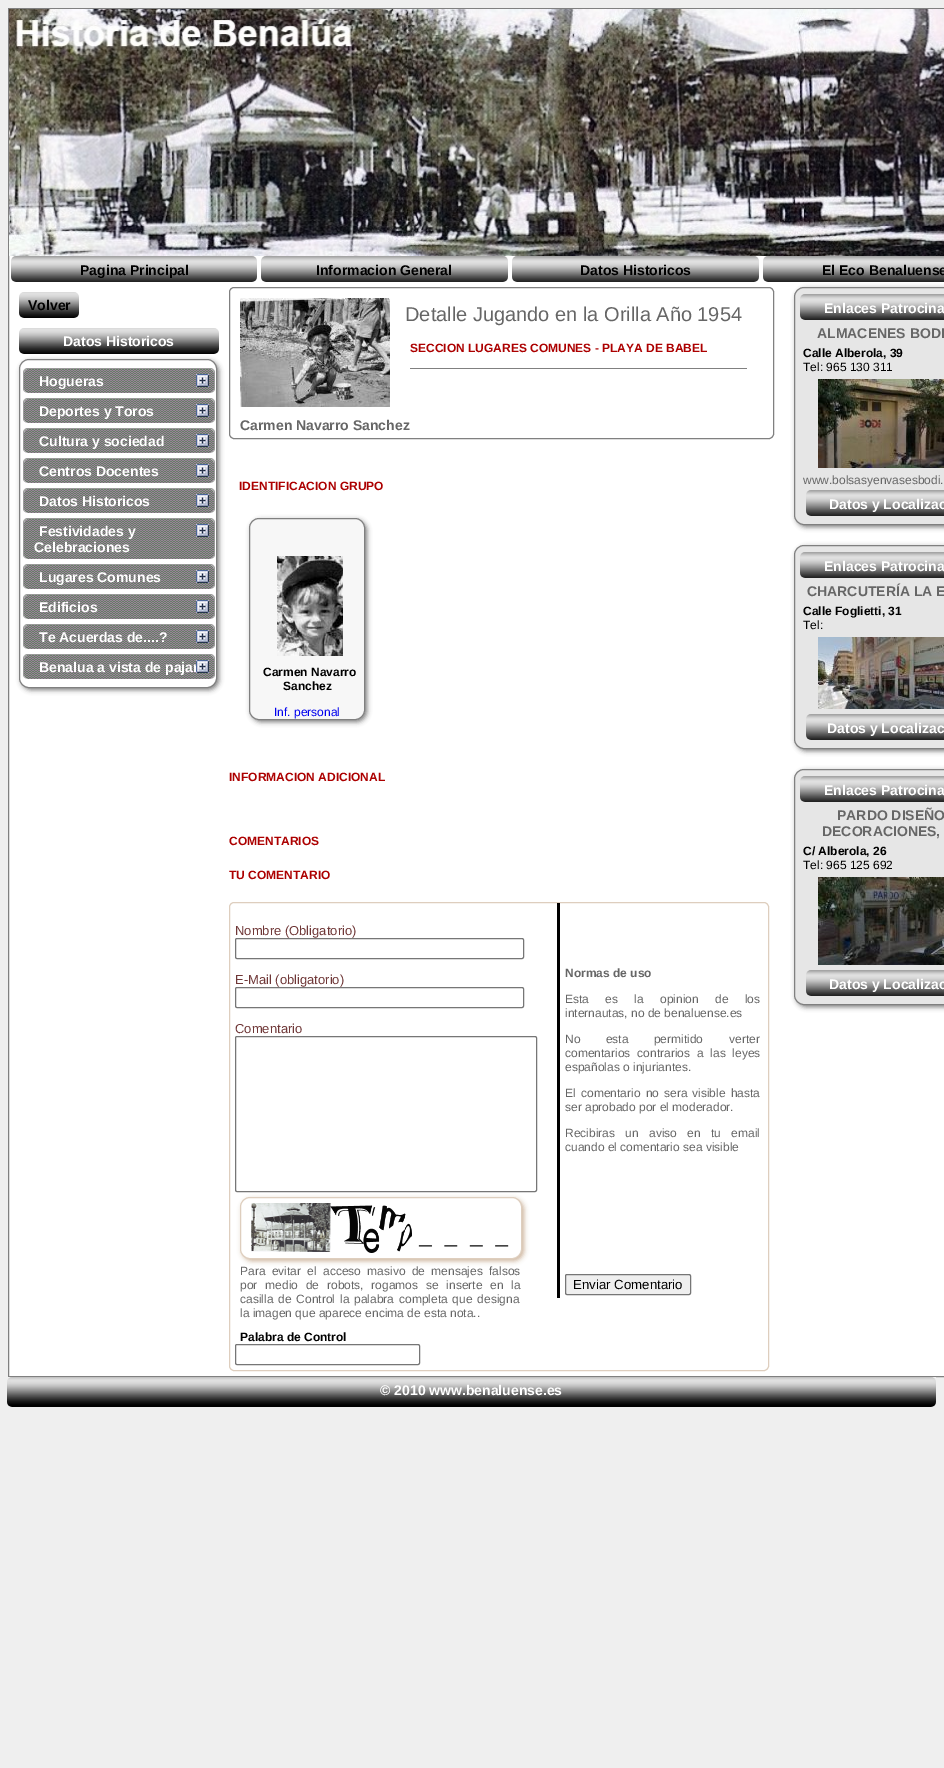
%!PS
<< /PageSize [944 1768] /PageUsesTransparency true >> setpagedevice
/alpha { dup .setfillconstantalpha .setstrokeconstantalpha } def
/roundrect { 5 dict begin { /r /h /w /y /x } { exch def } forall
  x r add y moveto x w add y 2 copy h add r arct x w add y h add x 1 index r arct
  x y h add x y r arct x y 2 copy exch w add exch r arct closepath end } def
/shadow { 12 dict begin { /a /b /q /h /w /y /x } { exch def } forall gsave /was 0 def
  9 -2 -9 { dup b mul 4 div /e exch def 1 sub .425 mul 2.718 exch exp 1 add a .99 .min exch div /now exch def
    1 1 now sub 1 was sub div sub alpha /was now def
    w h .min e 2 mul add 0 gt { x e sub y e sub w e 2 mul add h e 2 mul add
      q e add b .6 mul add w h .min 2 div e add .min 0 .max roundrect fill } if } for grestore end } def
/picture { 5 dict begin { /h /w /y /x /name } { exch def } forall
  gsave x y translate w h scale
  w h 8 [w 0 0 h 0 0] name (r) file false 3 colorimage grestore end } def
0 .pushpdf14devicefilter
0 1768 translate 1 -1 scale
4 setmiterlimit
0.937 setgray
0 0 944 1768 rectfill
1 setgray
9 256 935 1120 rectfill
0.502 setgray
8.5 8.5 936 1368 rectstroke
(img1.rgb) 9 9 935 247 picture
(img2.rgb) 11 256 246 26 picture
/LiberationSans-Bold [14 0 0 -14 0 0] selectfont
0 setgray
80 275 moveto (Pagina Principal) show
(img3.rgb) 261 256 247 26 picture
316 275 moveto (Informacion General) show
(img4.rgb) 512 256 247 26 picture
580 275 moveto (Datos Historicos) show
0.502 setgray
796 289 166 238 10 2.5 1 shadow
(img5.rgb) 763 256 181 26 picture
0 setgray
822 275 moveto (El Eco Benaluense) show
(img6.rgb) 19 292 60 26 picture
28 310 moveto (Volver) show
(img7.rgb) 19 328 200 26 picture
1 setgray
63 346 moveto (Datos Historicos) show
gsave
newpath 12 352 moveto 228 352 lineto 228 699 lineto 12 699 lineto closepath 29 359 moveto 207 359 lineto 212.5 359 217 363.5 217 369 curveto 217 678 lineto 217 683.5 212.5 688 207 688 curveto 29 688 lineto 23.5 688 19 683.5 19 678 curveto 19 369 lineto 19 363.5 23.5 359 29 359 curveto closepath eoclip newpath
0.502 setgray
21 361 198 329 10 2.5 1 shadow
grestore
0.502 setgray
19.5 359.5 197 328 9.5 roundrect stroke
0.604 setgray
newpath 28 368 moveto 210 368 lineto 213 368 215 370 215 373 curveto 215 388 lineto 215 391 213 393 210 393 curveto 28 393 lineto 25 393 23 391 23 388 curveto 23 373 lineto 23 370 25 368 28 368 curveto closepath 28 369 moveto 210 369 lineto 212 369 214 371 214 373 curveto 214 388 lineto 214 391 212 393 210 393 curveto 28 393 lineto 26 393 24 391 24 388 curveto 24 373 lineto 24 371 26 369 28 369 curveto closepath eofill
(img8.rgb) 24 369 190 24 picture
1 setgray
39 386 moveto (Hogueras) show
(img9.rgb) 196 374 13 13 picture
0.604 setgray
newpath 28 398 moveto 210 398 lineto 213 398 215 400 215 403 curveto 215 418 lineto 215 421 213 423 210 423 curveto 28 423 lineto 25 423 23 421 23 418 curveto 23 403 lineto 23 400 25 398 28 398 curveto closepath 28 399 moveto 210 399 lineto 212 399 214 401 214 403 curveto 214 418 lineto 214 421 212 423 210 423 curveto 28 423 lineto 26 423 24 421 24 418 curveto 24 403 lineto 24 401 26 399 28 399 curveto closepath eofill
(img8.rgb) 24 399 190 24 picture
1 setgray
39 416 moveto (Deportes y Toros) show
(img9.rgb) 196 404 13 13 picture
0.604 setgray
newpath 28 428 moveto 210 428 lineto 213 428 215 430 215 433 curveto 215 448 lineto 215 451 213 453 210 453 curveto 28 453 lineto 25 453 23 451 23 448 curveto 23 433 lineto 23 430 25 428 28 428 curveto closepath 28 429 moveto 210 429 lineto 212 429 214 431 214 433 curveto 214 448 lineto 214 451 212 453 210 453 curveto 28 453 lineto 26 453 24 451 24 448 curveto 24 433 lineto 24 431 26 429 28 429 curveto closepath eofill
(img8.rgb) 24 429 190 24 picture
1 setgray
39 446 moveto (Cultura y sociedad) show
(img9.rgb) 196 434 13 13 picture
0.604 setgray
newpath 28 458 moveto 210 458 lineto 213 458 215 460 215 463 curveto 215 478 lineto 215 481 213 483 210 483 curveto 28 483 lineto 25 483 23 481 23 478 curveto 23 463 lineto 23 460 25 458 28 458 curveto closepath 28 459 moveto 210 459 lineto 212 459 214 461 214 463 curveto 214 478 lineto 214 481 212 483 210 483 curveto 28 483 lineto 26 483 24 481 24 478 curveto 24 463 lineto 24 461 26 459 28 459 curveto closepath eofill
(img8.rgb) 24 459 190 24 picture
1 setgray
39 476 moveto (Centros Docentes) show
(img9.rgb) 196 464 13 13 picture
0.604 setgray
newpath 28 488 moveto 210 488 lineto 213 488 215 490 215 493 curveto 215 508 lineto 215 511 213 513 210 513 curveto 28 513 lineto 25 513 23 511 23 508 curveto 23 493 lineto 23 490 25 488 28 488 curveto closepath 28 489 moveto 210 489 lineto 212 489 214 491 214 493 curveto 214 508 lineto 214 511 212 513 210 513 curveto 28 513 lineto 26 513 24 511 24 508 curveto 24 493 lineto 24 491 26 489 28 489 curveto closepath eofill
(img8.rgb) 24 489 190 24 picture
1 setgray
39 506 moveto (Datos Historicos) show
(img9.rgb) 196 494 13 13 picture
0.604 setgray
newpath 28 518 moveto 210 518 lineto 213 518 215 520 215 523 curveto 215 554 lineto 215 557 213 559 210 559 curveto 28 559 lineto 25 559 23 557 23 554 curveto 23 523 lineto 23 520 25 518 28 518 curveto closepath 28 519 moveto 210 519 lineto 212 519 214 521 214 523 curveto 214 554 lineto 214 557 212 559 210 559 curveto 28 559 lineto 26 559 24 557 24 554 curveto 24 523 lineto 24 521 26 519 28 519 curveto closepath eofill
(img10.rgb) 24 519 190 40 picture
1 setgray
39 536 moveto (Festividades y) show
(img9.rgb) 196 524 13 13 picture
34 552 moveto (Celebraciones) show
0.604 setgray
newpath 28 564 moveto 210 564 lineto 213 564 215 566 215 569 curveto 215 584 lineto 215 587 213 589 210 589 curveto 28 589 lineto 25 589 23 587 23 584 curveto 23 569 lineto 23 566 25 564 28 564 curveto closepath 28 565 moveto 210 565 lineto 212 565 214 567 214 569 curveto 214 584 lineto 214 587 212 589 210 589 curveto 28 589 lineto 26 589 24 587 24 584 curveto 24 569 lineto 24 567 26 565 28 565 curveto closepath eofill
(img8.rgb) 24 565 190 24 picture
1 setgray
39 582 moveto (Lugares Comunes) show
(img9.rgb) 196 570 13 13 picture
0.604 setgray
newpath 28 594 moveto 210 594 lineto 213 594 215 596 215 599 curveto 215 614 lineto 215 617 213 619 210 619 curveto 28 619 lineto 25 619 23 617 23 614 curveto 23 599 lineto 23 596 25 594 28 594 curveto closepath 28 595 moveto 210 595 lineto 212 595 214 597 214 599 curveto 214 614 lineto 214 617 212 619 210 619 curveto 28 619 lineto 26 619 24 617 24 614 curveto 24 599 lineto 24 597 26 595 28 595 curveto closepath eofill
(img8.rgb) 24 595 190 24 picture
1 setgray
39 612 moveto (Edificios) show
(img9.rgb) 196 600 13 13 picture
0.604 setgray
newpath 28 624 moveto 210 624 lineto 213 624 215 626 215 629 curveto 215 644 lineto 215 647 213 649 210 649 curveto 28 649 lineto 25 649 23 647 23 644 curveto 23 629 lineto 23 626 25 624 28 624 curveto closepath 28 625 moveto 210 625 lineto 212 625 214 627 214 629 curveto 214 644 lineto 214 647 212 649 210 649 curveto 28 649 lineto 26 649 24 647 24 644 curveto 24 629 lineto 24 627 26 625 28 625 curveto closepath eofill
(img8.rgb) 24 625 190 24 picture
1 setgray
39 642 moveto (Te Acuerdas de....?) show
(img9.rgb) 196 630 13 13 picture
0.604 setgray
newpath 28 654 moveto 210 654 lineto 213 654 215 656 215 659 curveto 215 674 lineto 215 677 213 679 210 679 curveto 28 679 lineto 25 679 23 677 23 674 curveto 23 659 lineto 23 656 25 654 28 654 curveto closepath 28 655 moveto 210 655 lineto 212 655 214 657 214 659 curveto 214 674 lineto 214 677 212 679 210 679 curveto 28 679 lineto 26 679 24 677 24 674 curveto 24 659 lineto 24 657 26 655 28 655 curveto closepath eofill
(img8.rgb) 24 655 190 24 picture
1 setgray
39 672 moveto (Benalua a vista de pajar) show
(img9.rgb) 196 660 13 13 picture
0.502 setgray
229.5 287.5 544 151 4.5 roundrect stroke
(img11.rgb) 240 298 150 109 picture
/LiberationSans-Regular [20 0 0 -20 0 0] selectfont
0.4 setgray
405 321 moveto (Detalle Jugando en la Orilla Año 1954) show
/LiberationSans-Bold [12 0 0 -12 0 0] selectfont
0.675 0 0 setrgbcolor
410 352 moveto (SECCION LUGARES COMUNES - PLAYA DE BABEL) show
0.502 setgray
410 368 337 1 rectfill
/LiberationSans-Bold [14 0 0 -14 0 0] selectfont
0.4 setgray
240 430 moveto (Carmen Navarro Sanchez) show
/LiberationSans-Bold [12 0 0 -12 0 0] selectfont
0.675 0 0 setrgbcolor
239 490 moveto (IDENTIFICACION GRUPO) show
0.502 setgray
251 520 116 202 10 2.5 1 shadow
0.969 setgray
249.5 518.5 115 201 9.5 roundrect gsave fill grestore
0.502 setgray
stroke
(img12.rgb) 277 556 66 100 picture
0 setgray
263 676 moveto (Carmen Navarro) show
283 690 moveto (Sanchez) show
/LiberationSans-Regular [12 0 0 -12 0 0] selectfont
0 0 0.933 setrgbcolor
274 716 moveto (Inf. personal) show
/LiberationSans-Bold [12 0 0 -12 0 0] selectfont
0.675 0 0 setrgbcolor
229 781 moveto (INFORMACION ADICIONAL) show
229 845 moveto (COMENTARIOS) show
229 879 moveto (TU COMENTARIO) show
0.871 0.808 0.745 setrgbcolor
229.5 902.5 539 468 4.5 roundrect stroke
/LiberationSans-Regular [13 0 0 -13 0 0] selectfont
0.435 0.216 0.216 setrgbcolor
235 935 moveto (Nombre \(Obligatorio\)) show
0.463 setgray
235.5 938.5 288 20 1.5 roundrect stroke
0.435 0.216 0.216 setrgbcolor
235 984 moveto (E-Mail \(obligatorio\)) show
0.463 setgray
235.5 987.5 288 20 1.5 roundrect stroke
0.435 0.216 0.216 setrgbcolor
235 1033 moveto (Comentario) show
gsave
newpath 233 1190 moveto 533 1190 lineto 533 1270 lineto 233 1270 lineto closepath 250 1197 moveto 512 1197 lineto 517.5 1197 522 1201.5 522 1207 curveto 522 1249 lineto 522 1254.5 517.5 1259 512 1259 curveto 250 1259 lineto 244.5 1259 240 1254.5 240 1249 curveto 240 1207 lineto 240 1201.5 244.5 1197 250 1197 curveto closepath eoclip newpath
0.804 0.706 0.612 setrgbcolor
242 1199 282 62 10 2.5 1 shadow
grestore
0.463 setgray
235.5 1036.5 301 155 1.5 roundrect stroke
0.871 0.808 0.745 setrgbcolor
240.5 1197.5 281 61 9.5 roundrect stroke
(img13.rgb) 251 1203 258 50 picture
/LiberationSans-Regular [12 0 0 -12 0 0] selectfont
0.4 setgray
240 1275 moveto 3 0 32 (Para evitar el acceso masivo de mensajes falsos) widthshow
240 1289 moveto 4.5 0 32 (por medio de robots, rogamos se inserte en la) widthshow
240 1303 moveto 1.5 0 32 (casilla de Control la palabra completa que designa) widthshow
240 1317 moveto (la imagen que aparece encima de esta nota..) show
/LiberationSans-Bold [12 0 0 -12 0 0] selectfont
0 setgray
240 1341 moveto (Palabra de Control) show
0.463 setgray
235.5 1344.5 184 20 1.5 roundrect stroke
0 setgray
557 903 3 395 rectfill
0.4 setgray
565 977 moveto (Normas de uso) show
/LiberationSans-Regular [12 0 0 -12 0 0] selectfont
565 1003 moveto 13 0 32 (Esta es la opinion) widthshow
715 1003 moveto 13 0 32 (de los) widthshow
565 1017 moveto (internautas, no de benaluense.es) show
565 1043 moveto 22 0 32 (No esta permitido) widthshow
729 1043 moveto (verter) show
565 1057 moveto 3.5 0 32 (comentarios contrarios a las leyes) widthshow
565 1071 moveto (españolas o injuriantes.) show
565 1097 moveto 2 0 32 (El comentario no sera) widthshow
692 1097 moveto 2 0 32 (visible hasta) widthshow
565 1111 moveto (ser aprobado por el moderador.) show
565 1137 moveto 7 0 32 (Recibiras un) widthshow
649 1137 moveto 7 0 32 (aviso en tu email) widthshow
565 1151 moveto (cuando el comentario sea visible) show
0.937 setgray
565.5 1274.5 125 20 1.5 roundrect gsave fill grestore
0.463 setgray
stroke
/LiberationSans-Regular [13.25 0 0 -13.25 0 0] selectfont
0 setgray
573 1289 moveto (Enviar Comentario) show
0.902 setgray
794.5 287.5 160 237 9.5 roundrect gsave fill grestore
0.502 setgray
stroke
(img14.rgb) 800 294 144 26 picture
/LiberationSans-Bold [14 0 0 -14 0 0] selectfont
1 setgray
824 313 moveto (Enlaces Patrocina) show
0.4 setgray
817 338 moveto (ALMACENES BODI) show
/LiberationSans-Bold [12 0 0 -12 0 0] selectfont
0 setgray
803 357 moveto (Calle Alberola, 39) show
/LiberationSans-Regular [12 0 0 -12 0 0] selectfont
803 371 moveto (Tel: 965 130 311) show
(img15.rgb) 818 379 126 89 picture
0.4 setgray
803 484 moveto (www.bolsasyenvasesbodi.) show
(img16.rgb) 806 490 138 26 picture
/LiberationSans-Bold [14 0 0 -14 0 0] selectfont
1 setgray
829 509 moveto (Datos y Localizac) show
0.502 setgray
796 547 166 204 10 2.5 1 shadow
0.902 setgray
794.5 545.5 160 203 9.5 roundrect gsave fill grestore
0.502 setgray
stroke
(img14.rgb) 800 552 144 26 picture
1 setgray
824 571 moveto (Enlaces Patrocina) show
0.4 setgray
807 596 moveto (CHARCUTERÍA LA E) show
/LiberationSans-Bold [12 0 0 -12 0 0] selectfont
0 setgray
803 615 moveto (Calle Foglietti, 31) show
/LiberationSans-Regular [12 0 0 -12 0 0] selectfont
803 629 moveto (Tel:) show
(img17.rgb) 818 637 126 72 picture
(img16.rgb) 806 714 138 26 picture
/LiberationSans-Bold [14 0 0 -14 0 0] selectfont
1 setgray
827 733 moveto (Datos y Localizac) show
0.502 setgray
796 771 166 236 10 2.5 1 shadow
0.902 setgray
794.5 769.5 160 235 9.5 roundrect gsave fill grestore
0.502 setgray
stroke
(img14.rgb) 800 776 144 26 picture
1 setgray
824 795 moveto (Enlaces Patrocina) show
0.4 setgray
837 820 moveto (PARDO DISEÑO) show
822 836 moveto (DECORACIONES,) show
/LiberationSans-Bold [12 0 0 -12 0 0] selectfont
0 setgray
803 855 moveto (C/ Alberola, 26) show
/LiberationSans-Regular [12 0 0 -12 0 0] selectfont
803 869 moveto (Tel: 965 125 692) show
(img18.rgb) 818 877 126 88 picture
(img16.rgb) 806 970 138 26 picture
/LiberationSans-Bold [14 0 0 -14 0 0] selectfont
1 setgray
829 989 moveto (Datos y Localizac) show
(img19.rgb) 7 1377 929 30 picture
380 1395 moveto (© 2010 www.benaluense.es) show
.poppdf14devicefilter showpage
